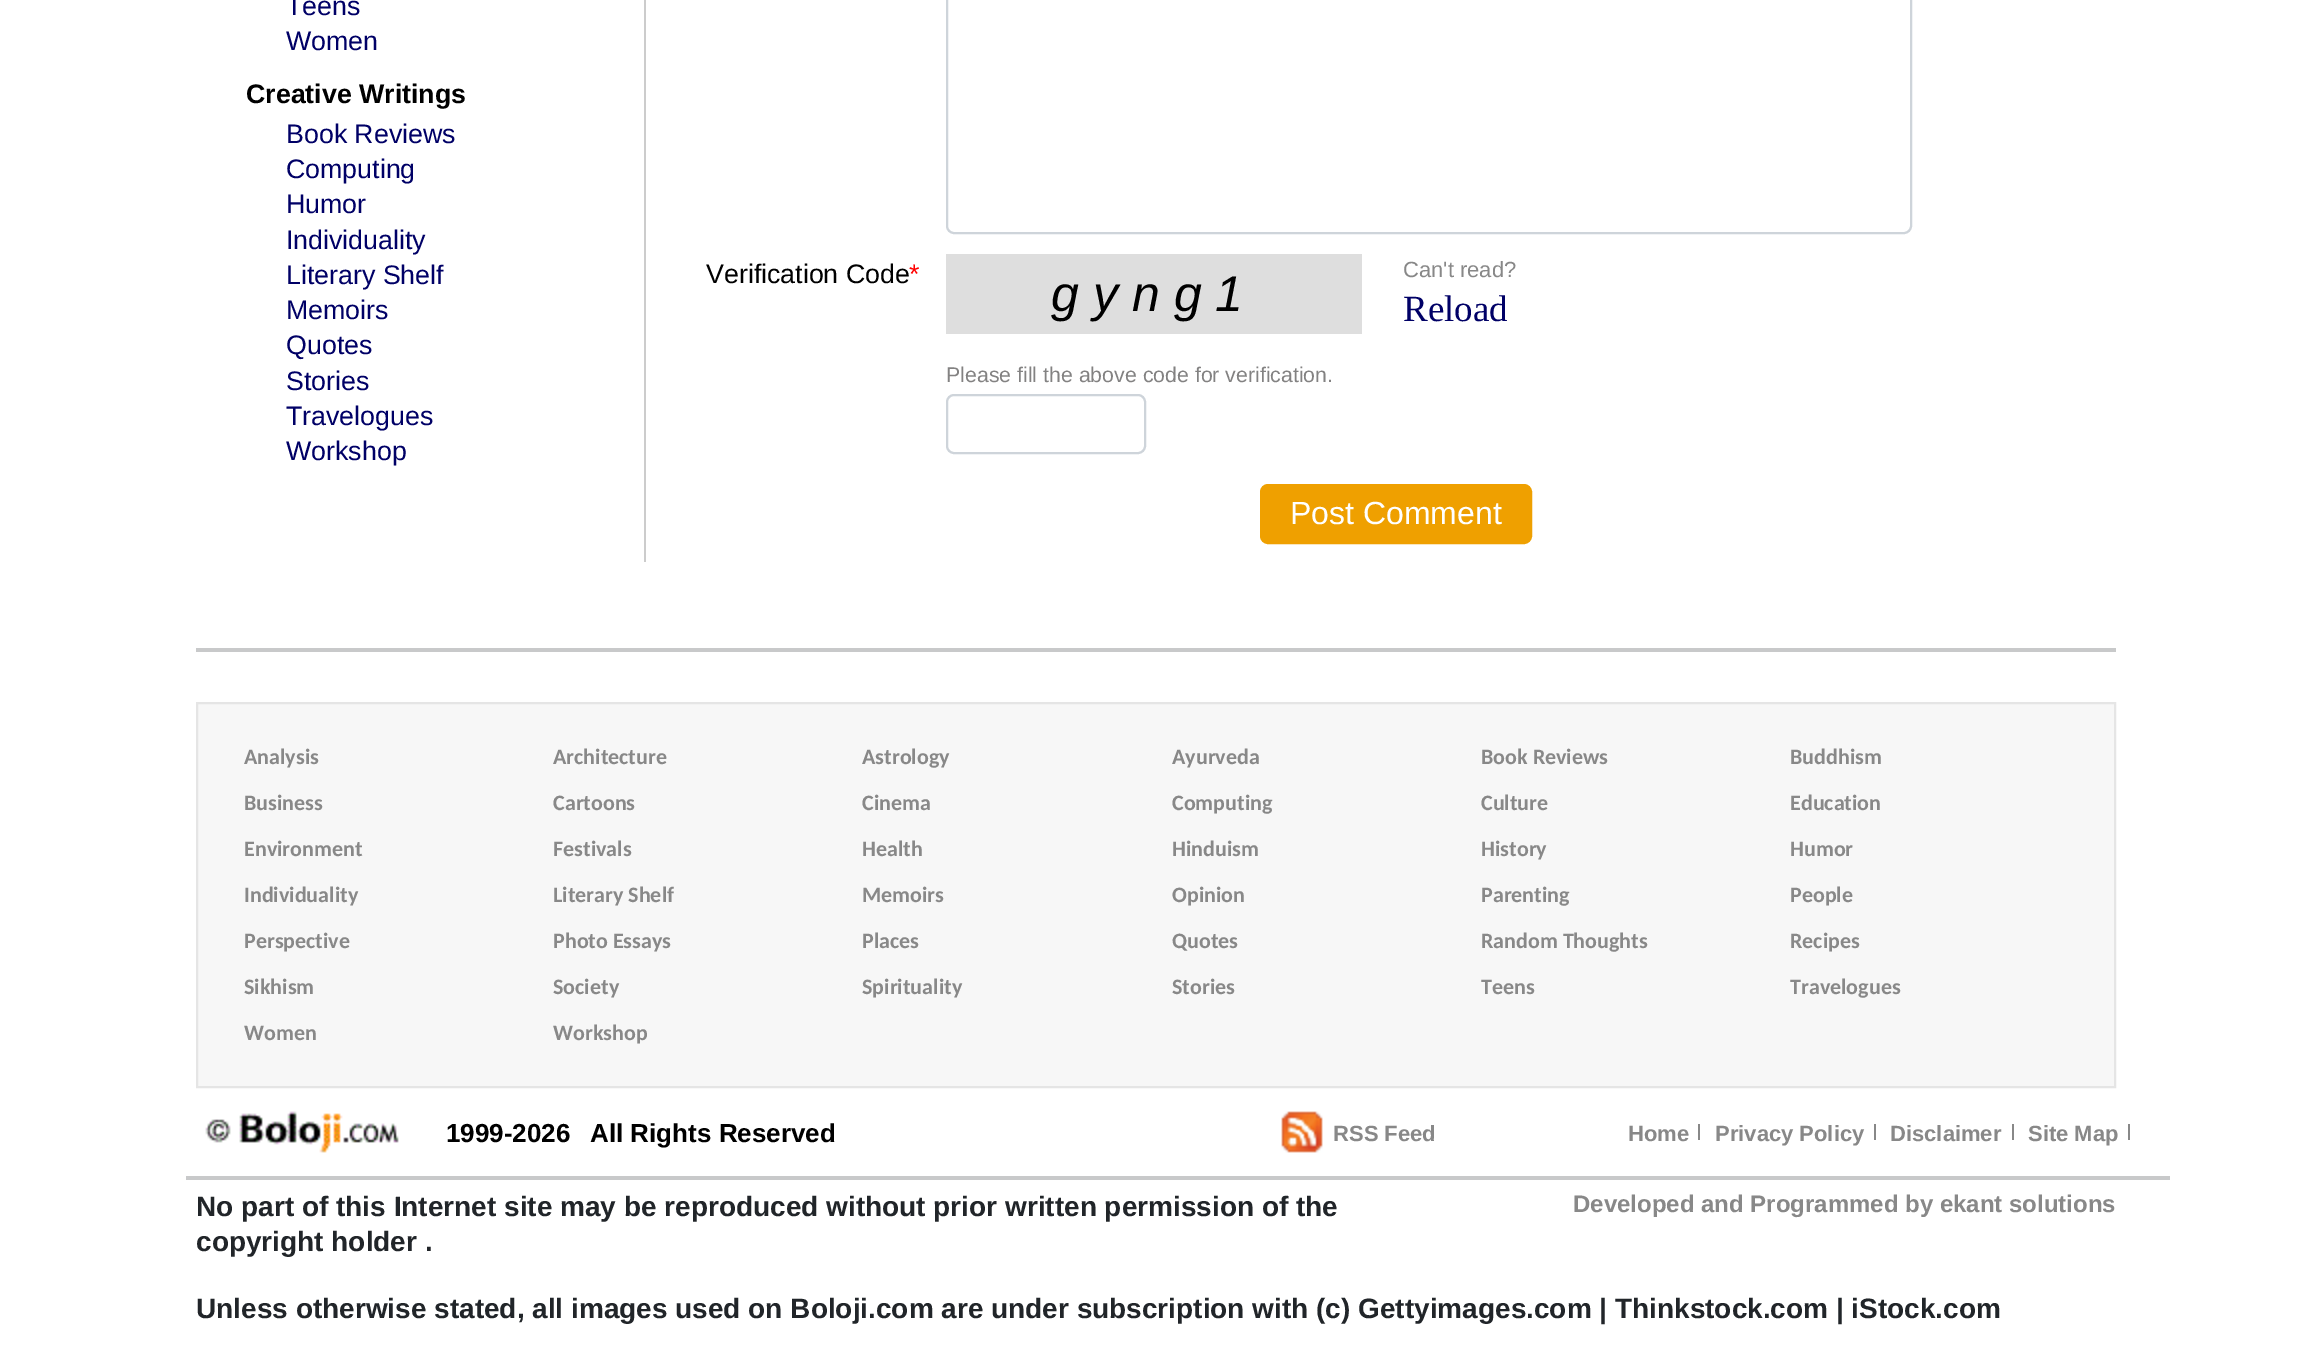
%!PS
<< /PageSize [2311 1358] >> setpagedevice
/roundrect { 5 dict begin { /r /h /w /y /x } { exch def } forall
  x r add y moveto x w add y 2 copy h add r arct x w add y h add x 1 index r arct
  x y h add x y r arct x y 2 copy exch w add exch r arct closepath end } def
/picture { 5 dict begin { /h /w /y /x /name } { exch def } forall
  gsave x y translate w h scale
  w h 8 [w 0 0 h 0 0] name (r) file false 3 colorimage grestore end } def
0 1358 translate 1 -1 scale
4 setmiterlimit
1 setgray
0 0 2311 1358 rectfill
0.8 setgray
644 0 2 562 rectfill
/LiberationSans-Regular [26.75 0 0 -26.75 0 0] selectfont
0 0 0.4 setrgbcolor
286 15 moveto (Teens) show
286 50 moveto (Women) show
/LiberationSans-Bold [26.75 0 0 -26.75 0 0] selectfont
0 setgray
246 103 moveto (Creative Writings) show
/LiberationSans-Regular [26.75 0 0 -26.75 0 0] selectfont
0 0 0.4 setrgbcolor
286 143 moveto (Book Reviews) show
286 178 moveto (Computing) show
286 213 moveto (Humor) show
286 249 moveto (Individuality) show
286 284 moveto (Literary Shelf) show
286 319 moveto (Memoirs) show
286 354 moveto (Quotes) show
286 390 moveto (Stories) show
286 425 moveto (Travelogues) show
286 460 moveto (Workshop) show
0.808 0.831 0.855 setrgbcolor
2 setlinewidth
947 -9 964 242 7 roundrect stroke
0 setgray
706 283 moveto (Verification Code) show
1 0 0 setrgbcolor
909 283 moveto (*) show
0.871 setgray
946 254 416 80 rectfill
/LiberationSans-Italic [50 0 0 -50 0 0] selectfont
0 setgray
1051 311 moveto 14 0 (gyng1) ashow
/LiberationSans-Regular [22 0 0 -22 0 0] selectfont
0.533 setgray
1403 277 moveto (Can't read?) show
/LiberationSerif-Regular [37 0 0 -37 0 0] selectfont
0 0 0.4 setrgbcolor
1403 321 moveto (Reload) show
/LiberationSans-Regular [21.3 0 0 -21.3 0 0] selectfont
0.514 0.51 0.51 setrgbcolor
946 382 moveto (Please fill the above code for verification.) show
0.808 0.831 0.855 setrgbcolor
947 395 198 58 7 roundrect stroke
0.937 0.627 0 setrgbcolor
1261 485 270 58 7 roundrect gsave fill grestore
stroke
/LiberationSans-Regular [32 0 0 -32 0 0] selectfont
1 setgray
1290 524 moveto (Post Comment) show
0.784 0.788 0.792 setrgbcolor
196 648 1920 4 rectfill
0.969 setgray
newpath 197 703 moveto 2115 703 lineto 2115 1087 lineto 197 1087 lineto closepath gsave fill grestore
0.898 setgray
stroke
/Carlito-Bold [22 0 0 -22 0 0] selectfont
0.533 setgray
244 764 moveto (Analysis) show
553 764 moveto (Architecture) show
862 764 moveto (Astrology) show
1172 764 moveto (Ayurveda) show
1481 764 moveto (Book Reviews) show
1790 764 moveto (Buddhism) show
244 810 moveto (Business) show
553 810 moveto (Cartoons) show
862 810 moveto (Cinema) show
1172 810 moveto (Computing) show
1481 810 moveto (Culture) show
1790 810 moveto (Education) show
244 856 moveto (Environment) show
553 856 moveto (Festivals) show
862 856 moveto (Health) show
1172 856 moveto (Hinduism) show
1481 856 moveto (History) show
1790 856 moveto (Humor) show
244 902 moveto (Individuality) show
553 902 moveto (Literary Shelf) show
862 902 moveto (Memoirs) show
1172 902 moveto (Opinion) show
1481 902 moveto (Parenting) show
1790 902 moveto (People) show
244 948 moveto (Perspective) show
553 948 moveto (Photo Essays) show
862 948 moveto (Places) show
1172 948 moveto (Quotes) show
1481 948 moveto (Random Thoughts) show
1790 948 moveto (Recipes) show
244 994 moveto (Sikhism) show
553 994 moveto (Society) show
862 994 moveto (Spirituality) show
1172 994 moveto (Stories) show
1481 994 moveto (Teens) show
1790 994 moveto (Travelogues) show
244 1040 moveto (Women) show
553 1040 moveto (Workshop) show
(img1.rgb) 205 1111 194 42 picture
/LiberationSans-Bold [26 0 0 -26 0 0] selectfont
0 setgray
446 1142 moveto (1999-2026) show
590 1142 moveto (All Rights Reserved) show
(img2.rgb) 1281 1111 42 42 picture
/LiberationSans-Bold [22 0 0 -22 0 0] selectfont
0.533 setgray
1333 1141 moveto (RSS Feed) show
1628 1141 moveto (Home) show
1698 1124 2 16 rectfill
1715 1141 moveto (Privacy Policy) show
1874 1124 2 16 rectfill
1890 1141 moveto (Disclaimer) show
2012 1124 2 16 rectfill
2028 1141 moveto (Site Map) show
2128 1124 2 16 rectfill
0.784 0.788 0.792 setrgbcolor
186 1176 1984 4 rectfill
/LiberationSans-Bold [28 0 0 -28 0 0] selectfont
0.129 0.145 0.161 setrgbcolor
196 1216 moveto (No part of this Internet site may be reproduced without prior written permission of the) show
196 1251 moveto (copyright holder .) show
/LiberationSans-Bold [24 0 0 -24 0 0] selectfont
0.533 setgray
1573 1212 moveto (Developed and Programmed by ekant solutions) show
/LiberationSans-Bold [28 0 0 -28 0 0] selectfont
0.129 0.145 0.161 setrgbcolor
196 1318 moveto (Unless otherwise stated, all images used on Boloji.com are under subscription with \(c\) Gettyimages.com | Thinkstock.com | iStock.com) show
showpage
